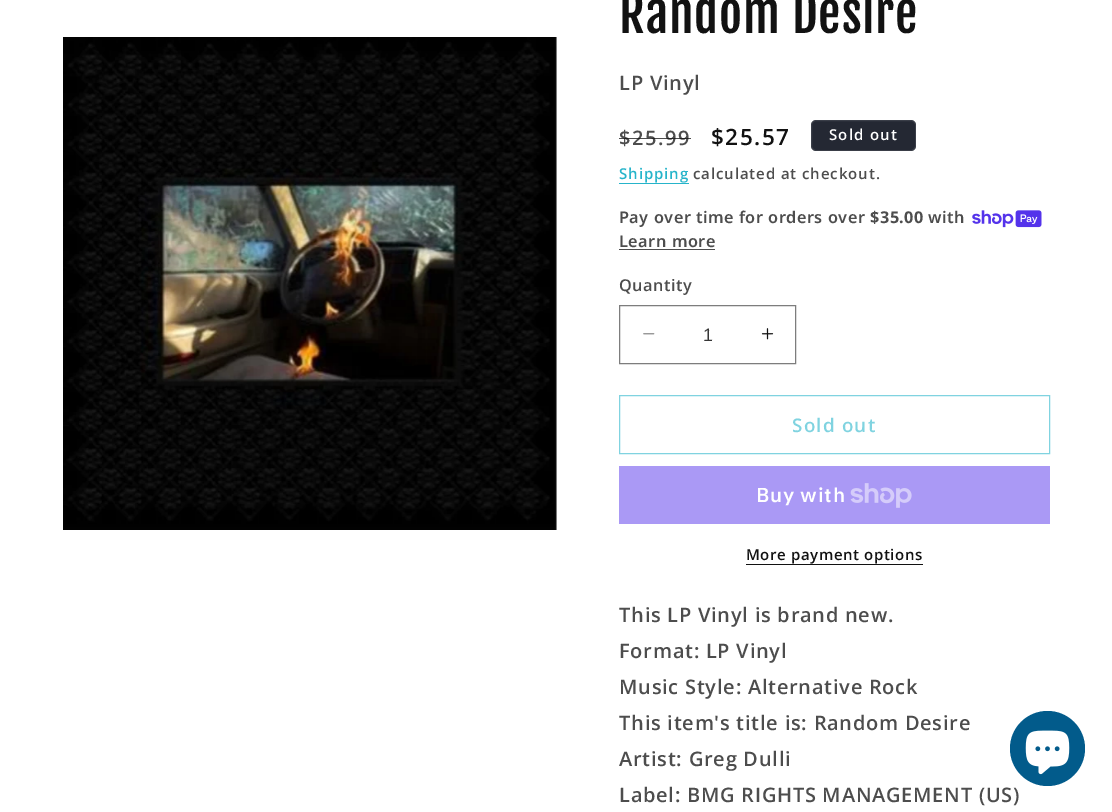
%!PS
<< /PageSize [1112 812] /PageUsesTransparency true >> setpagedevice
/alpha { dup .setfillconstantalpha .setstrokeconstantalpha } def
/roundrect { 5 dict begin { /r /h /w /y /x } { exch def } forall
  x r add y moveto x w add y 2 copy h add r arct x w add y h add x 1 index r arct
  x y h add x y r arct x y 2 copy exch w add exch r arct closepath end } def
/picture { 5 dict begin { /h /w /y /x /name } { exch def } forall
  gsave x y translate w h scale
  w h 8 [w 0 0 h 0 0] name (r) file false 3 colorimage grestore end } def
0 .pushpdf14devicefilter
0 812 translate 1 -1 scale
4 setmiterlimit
1 setgray
0 0 1112 812 rectfill
(img1.rgb) 63 37 494 493 picture
/FjallaOne-Regular [50 0 0 -50 0 0] selectfont
0.071 setgray
619 33 moveto 0.75 0 (Random Desire) ashow
/OpenSans-SemiBold [20 0 0 -20 0 0] selectfont
0.302 setgray
619 90 moveto 0.75 0 (LP Vinyl) ashow
619 145 moveto 1.5 0 ($25.99) ashow
0.75 alpha
0.071 setgray
619 138 72 1 rectfill
/OpenSans-SemiBold [22.5 0 0 -22.5 0 0] selectfont
1 alpha
711 145 moveto 1.5 0 ($25.57) ashow
0.141 0.157 0.2 setrgbcolor
811 120 105 31 5 roundrect fill
0.1 alpha
1 setgray
811.5 120.5 104 30 4.5 roundrect stroke
/OpenSans-SemiBold [15 0 0 -15 0 0] selectfont
1 alpha
829 140 moveto 1.25 0 (Sold out) ashow
0.149 0.706 0.792 setrgbcolor
619 179 moveto 0.9 0 (Shipping) ashow
619 183 70 1 rectfill
0.302 setgray
693 179 moveto 0.9 0 (calculated at checkout.) ashow
/NotoSans-SemiBold [16.25 0 0 -16.25 0 0] selectfont
619 223 moveto 0.5 0 (Pay over time for orders over) ashow
/NotoSans-Bold [16.25 0 0 -16.25 0 0] selectfont
870 223 moveto 0.5 0 ($35.00) ashow
/NotoSans-SemiBold [16.25 0 0 -16.25 0 0] selectfont
928 223 moveto 0.5 0 (with) ashow
(img2.rgb) 972 210 70 18 picture
619 247 moveto 0.5 0 (Learn more) ashow
619 249 96 1 rectfill
/OpenSans-SemiBold [16.25 0 0 -16.25 0 0] selectfont
619 291 moveto 0.5 0 (Quantity) ashow
(img3.rgb) 643 333 12 2 picture
(img4.rgb) 761 328 13 12 picture
0.49 setgray
619.5 305.5 176 58 rectstroke
/LiberationSans-Regular [18 0 0 -18 0 0] selectfont
0.212 setgray
703 341 moveto (1) show
0.502 0.827 0.878 setrgbcolor
619.5 395.5 430 58 rectstroke
/OpenSans-SemiBold [18.75 0 0 -18.75 0 0] selectfont
792 432 moveto 1.25 0 (Sold out) ashow
0.667 0.6 0.961 setrgbcolor
619 466 431 58 rectfill
/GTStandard-SemiBold [20 0 0 -20 0 0] selectfont
1 setgray
756 502 moveto 0.75 0 (Buy with) ashow
(img5.rgb) 850 483 62 25 picture
/OpenSans-SemiBold [15 0 0 -15 0 0] selectfont
0.071 setgray
746 560 moveto 0.6 0 (More payment options) ashow
746 564 177 1 rectfill
/OpenSans-SemiBold [20 0 0 -20 0 0] selectfont
0.302 setgray
619 622 moveto 0.75 0 (This LP Vinyl is brand new.) ashow
619 658 moveto 0.75 0 (Format: LP Vinyl) ashow
619 694 moveto 0.75 0 (Music Style: Alternative Rock) ashow
619 730 moveto 0.75 0 (This item's title is: Random Desire) ashow
619 766 moveto 0.75 0 (Artist: Greg Dulli) ashow
619 802 moveto 0.75 0 (Label: BMG RIGHTS MANAGEMENT \(US\)) ashow
0.008 0.357 0.545 setrgbcolor
newpath 1047.5 748.5 37.5 0 360 arc closepath fill
(img6.rgb) 1025 730 45 45 picture
.poppdf14devicefilter showpage
